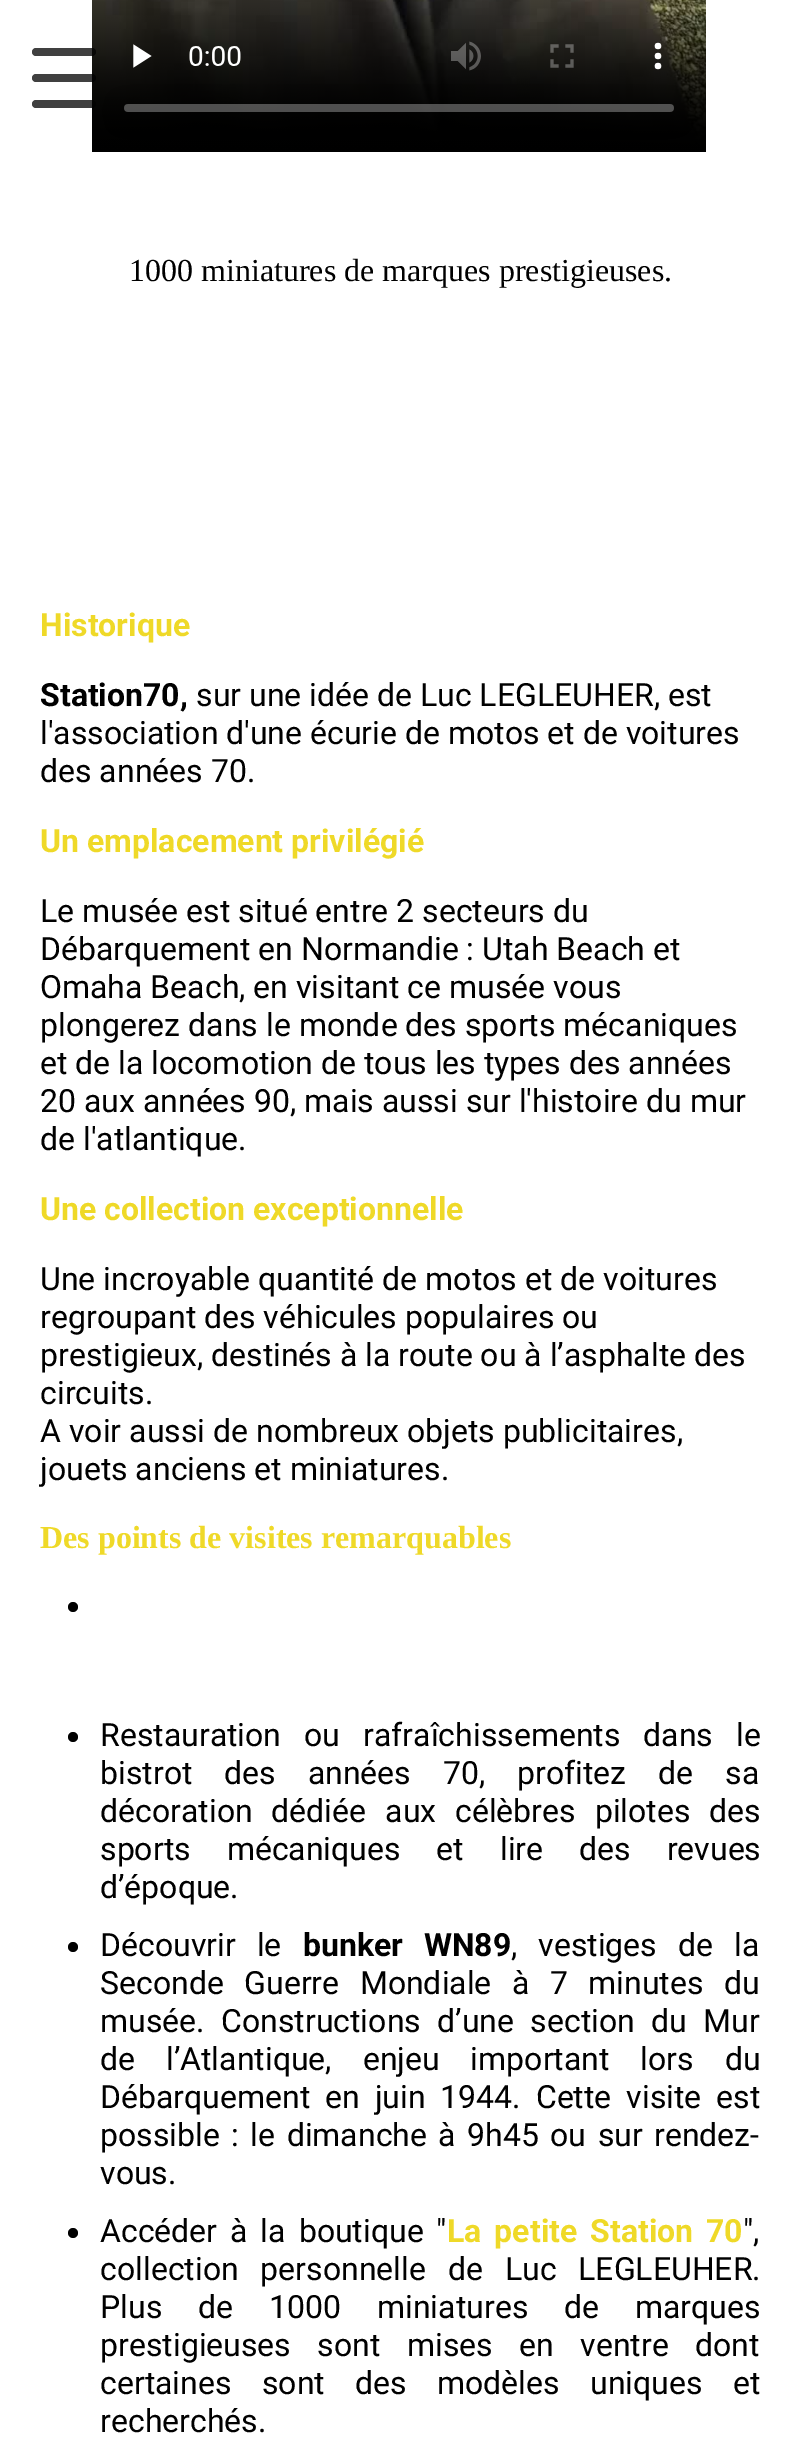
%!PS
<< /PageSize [800 2448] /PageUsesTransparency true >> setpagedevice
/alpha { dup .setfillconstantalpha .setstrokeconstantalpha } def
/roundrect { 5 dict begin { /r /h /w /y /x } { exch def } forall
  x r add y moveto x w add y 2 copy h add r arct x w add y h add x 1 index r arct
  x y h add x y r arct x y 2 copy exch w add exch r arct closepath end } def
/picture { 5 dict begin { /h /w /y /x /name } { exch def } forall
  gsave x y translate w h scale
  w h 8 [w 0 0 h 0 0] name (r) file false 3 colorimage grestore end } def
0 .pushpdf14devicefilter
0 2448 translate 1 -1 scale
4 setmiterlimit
1 setgray
0 0 800 2448 rectfill
(img1.rgb) 92 0 614 152 picture
0.75 alpha
0 setgray
32 48 64 8 4 roundrect fill
32 74 64 8 4 roundrect fill
32 100 64 8 4 roundrect fill
/LiberationSerif-Regular [32 0 0 -32 0 0] selectfont
1 alpha
129 281 moveto (1000 miniatures de marques prestigieuses.) show
/Roboto-Bold [32 0 0 -32 0 0] selectfont
0.937 0.851 0.157 setrgbcolor
40 636 moveto (Historique) show
0 setgray
40 706 moveto (Station70,) show
/Roboto-Regular [32 0 0 -32 0 0] selectfont
196 706 moveto (sur une idée de Luc LEGLEUHER, est) show
40 744 moveto (l'association d'une écurie de motos et de voitures) show
40 782 moveto (des années 70.) show
/Roboto-Bold [32 0 0 -32 0 0] selectfont
0.937 0.851 0.157 setrgbcolor
40 852 moveto (Un emplacement privilégié) show
/Roboto-Regular [32 0 0 -32 0 0] selectfont
0 setgray
40 922 moveto (Le musée est situé entre 2 secteurs du) show
40 960 moveto (Débarquement en Normandie : Utah Beach et) show
40 998 moveto (Omaha Beach, en visitant ce musée vous) show
40 1036 moveto (plongerez dans le monde des sports mécaniques) show
40 1074 moveto (et de la locomotion de tous les types des années) show
40 1112 moveto (20 aux années 90, mais aussi sur l'histoire du mur) show
40 1150 moveto (de l'atlantique.) show
/Roboto-Bold [32 0 0 -32 0 0] selectfont
0.937 0.851 0.157 setrgbcolor
40 1220 moveto (Une collection exceptionnelle) show
/Roboto-Regular [32 0 0 -32 0 0] selectfont
0 setgray
40 1290 moveto (Une incroyable quantité de motos et de voitures) show
40 1328 moveto (regroupant des véhicules populaires ou) show
40 1366 moveto (prestigieux, destinés à la route ou à l’asphalte des) show
40 1404 moveto (circuits.) show
40 1442 moveto (A voir aussi de nombreux objets publicitaires,) show
40 1480 moveto (jouets anciens et miniatures.) show
/LiberationSerif-Bold [32 0 0 -32 0 0] selectfont
0.937 0.851 0.157 setrgbcolor
40 1548 moveto (Des points de visites remarquables) show
0 setgray
newpath 73 1607 5 0 360 arc closepath fill
newpath 73 1737 5 0 360 arc closepath fill
/Roboto-Regular [32 0 0 -32 0 0] selectfont
100 1746 moveto 15 0 32 (Restauration ou rafraîchissements dans le) widthshow
100 1784 moveto 24 0 32 (bistrot des années 70, profitez de sa) widthshow
100 1822 moveto 11 0 32 (décoration dédiée aux célèbres pilotes des) widthshow
100 1860 moveto 28 0 32 (sports mécaniques et lire des revues) widthshow
100 1898 moveto (d’époque.) show
newpath 73 1947 5 0 360 arc closepath fill
100 1956 moveto 13 0 32 (Découvrir le) widthshow
/Roboto-Bold [32 0 0 -32 0 0] selectfont
303 1956 moveto 13 0 32 (bunker WN89) widthshow
/Roboto-Regular [32 0 0 -32 0 0] selectfont
511 1956 moveto 13 0 32 (, vestiges de la) widthshow
100 1994 moveto 12.5 0 32 (Seconde Guerre Mondiale à 7 minutes du) widthshow
100 2032 moveto 8.5 0 32 (musée. Constructions d’une section du Mur) widthshow
100 2070 moveto 23 0 32 (de l’Atlantique, enjeu important lors du) widthshow
100 2108 moveto 7 0 32 (Débarquement en juin 1944. Cette visite est) widthshow
100 2146 moveto 3.5 0 32 (possible : le dimanche à 9h45 ou sur rendez-) widthshow
100 2184 moveto (vous.) show
newpath 73 2233 5 0 360 arc closepath fill
100 2242 moveto 5 0 32 (Accéder à la boutique ") widthshow
/Roboto-Bold [32 0 0 -32 0 0] selectfont
0.937 0.851 0.157 setrgbcolor
447 2242 moveto 5 0 32 (La petite Station 70) widthshow
/Roboto-Regular [32 0 0 -32 0 0] selectfont
0 setgray
743 2242 moveto (",) show
100 2280 moveto 14 0 32 (collection personnelle de Luc LEGLEUHER.) widthshow
100 2318 moveto 28 0 32 (Plus de 1000 miniatures de marques) widthshow
100 2356 moveto 18.5 0 32 (prestigieuses sont mises en ventre dont) widthshow
100 2394 moveto 22.5 0 32 (certaines sont des modèles uniques et) widthshow
100 2432 moveto (recherchés.) show
.poppdf14devicefilter showpage
